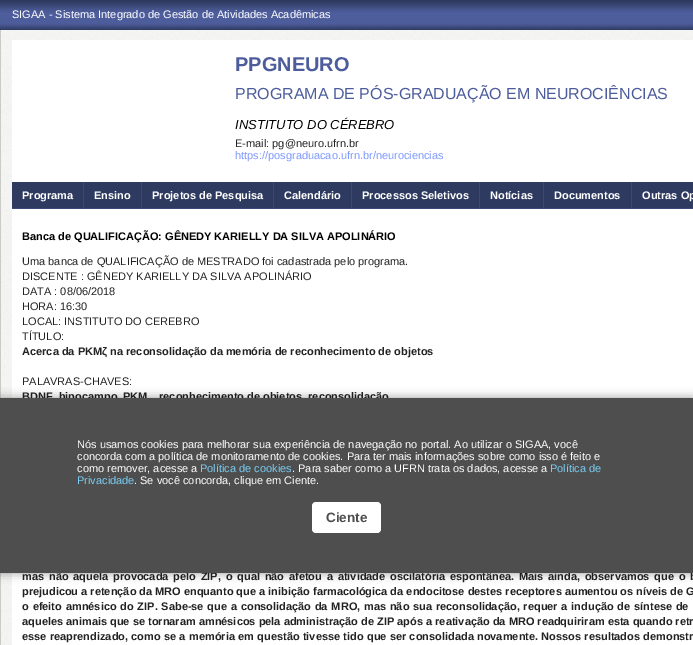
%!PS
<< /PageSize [693 645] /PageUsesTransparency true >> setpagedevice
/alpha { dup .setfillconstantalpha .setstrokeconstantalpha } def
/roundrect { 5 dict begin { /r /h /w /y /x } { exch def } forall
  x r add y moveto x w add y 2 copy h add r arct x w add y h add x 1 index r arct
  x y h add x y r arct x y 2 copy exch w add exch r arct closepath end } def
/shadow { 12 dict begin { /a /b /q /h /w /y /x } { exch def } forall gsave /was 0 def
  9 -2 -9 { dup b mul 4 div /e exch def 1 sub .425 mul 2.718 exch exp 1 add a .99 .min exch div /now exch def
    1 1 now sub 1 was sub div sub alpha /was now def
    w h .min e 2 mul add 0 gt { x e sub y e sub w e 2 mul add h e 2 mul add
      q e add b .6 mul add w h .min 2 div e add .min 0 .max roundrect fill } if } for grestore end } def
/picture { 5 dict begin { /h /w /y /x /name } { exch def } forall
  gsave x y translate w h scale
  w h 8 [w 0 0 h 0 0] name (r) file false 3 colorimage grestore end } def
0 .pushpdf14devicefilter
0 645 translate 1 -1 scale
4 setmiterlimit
1 setgray
0 0 693 645 rectfill
(img1.rgb) 0 0 693 30 picture
/LiberationSans-Regular [11 0 0 -11 0 0] selectfont
12 18 moveto (SIGAA - Sistema Integrado de Gestão de Atividades Acadêmicas) show
(img2.rgb) 1 30 692 615 picture
0.792 0.792 0.78 setrgbcolor
0 30 1 615 rectfill
1 setgray
12 40 681 605 rectfill
/LiberationSans-Bold [20 0 0 -20 0 0] selectfont
0.302 0.365 0.612 setrgbcolor
235 71 moveto (PPGNEURO) show
/LiberationSans-Regular [16 0 0 -16 0 0] selectfont
235 99 moveto (PROGRAMA DE PÓS-GRADUAÇÃO EM NEUROCIÊNCIAS) show
/LiberationSans-Italic [13 0 0 -13 0 0] selectfont
0 setgray
235 129 moveto (INSTITUTO DO CÉREBRO) show
/LiberationSans-Regular [11 0 0 -11 0 0] selectfont
0.133 setgray
235 147 moveto (E-mail: pg@neuro.ufrn.br) show
0.49 0.592 0.996 setrgbcolor
235 159 moveto (https://posgraduacao.ufrn.br/neurociencias) show
0.184 0.227 0.376 setrgbcolor
12 182 681 26 rectfill
0.231 0.282 0.471 setrgbcolor
12 208 681 1 rectfill
/LiberationSans-Bold [11 0 0 -11 0 0] selectfont
1 setgray
22 199 moveto (Programa) show
0.231 0.282 0.471 setrgbcolor
83 182 1 27 rectfill
1 setgray
94 199 moveto (Ensino) show
0.231 0.282 0.471 setrgbcolor
141 182 1 27 rectfill
1 setgray
152 199 moveto (Projetos de Pesquisa) show
0.231 0.282 0.471 setrgbcolor
273 182 1 27 rectfill
1 setgray
284 199 moveto (Calendário) show
0.231 0.282 0.471 setrgbcolor
351 182 1 27 rectfill
1 setgray
362 199 moveto (Processos Seletivos) show
0.231 0.282 0.471 setrgbcolor
479 182 1 27 rectfill
1 setgray
490 199 moveto (Notícias) show
0.231 0.282 0.471 setrgbcolor
543 182 1 27 rectfill
1 setgray
554 199 moveto (Documentos) show
0.231 0.282 0.471 setrgbcolor
631 182 1 27 rectfill
1 setgray
642 199 moveto (Outras Op) show
0 setgray
22 240 moveto (Banca de QUALIFICAÇÃO: GÊNEDY KARIELLY DA SILVA APOLINÁRIO) show
/LiberationSans-Regular [11 0 0 -11 0 0] selectfont
0.133 setgray
22 265 moveto (Uma banca de QUALIFICAÇÃO de MESTRADO foi cadastrada pelo programa.) show
22 280 moveto (DISCENTE : GÊNEDY KARIELLY DA SILVA APOLINÁRIO) show
22 295 moveto (DATA : 08/06/2018) show
22 310 moveto (HORA: 16:30) show
22 325 moveto (LOCAL: INSTITUTO DO CEREBRO) show
22 340 moveto (TÍTULO:) show
/LiberationSans-Bold [11 0 0 -11 0 0] selectfont
22 355 moveto (Acerca da PKMζ na reconsolidação da memória de reconhecimento de objetos) show
/LiberationSans-Regular [11 0 0 -11 0 0] selectfont
22 385 moveto (PALAVRAS-CHAVES:) show
/LiberationSans-Bold [11 0 0 -11 0 0] selectfont
22 400 moveto (BDNF, hipocampo) show
123 400 moveto (PKM) show
159 400 moveto (reconhecimento de objetos, reconsolidação) show
22 580 moveto 1.75 0 32 (mas não aquela provocada pelo ZIP, o qual não afetou a atividade oscilatória espontânea. Mais ainda, observamos que o b) widthshow
22 595 moveto (prejudicou a retenção da MRO enquanto que a inibição farmacológica da endocitose destes receptores aumentou os níveis de G) show
22 610 moveto 0.75 0 32 (o efeito amnésico do ZIP. Sabe-se que a consolidação da MRO, mas não sua reconsolidação, requer a indução de síntese de) widthshow
22 625 moveto (aqueles animais que se tornaram amnésicos pela administração de ZIP após a reativação da MRO readquiriram esta quando retr) show
22 640 moveto 0.25 0 32 (esse reaprendizado, como se a memória em questão tivesse tido que ser consolidada novamente. Nossos resultados demonstr) widthshow
0 setgray
0 398 693 175 0 5 0.4 shadow
0.306 setgray
0 398 693 175 rectfill
/LiberationSans-Regular [11 0 0 -11 0 0] selectfont
1 setgray
77 448 moveto (Nós usamos cookies para melhorar sua experiência de navegação no portal. Ao utilizar o SIGAA, você) show
77 460 moveto (concorda com a política de monitoramento de cookies. Para ter mais informações sobre como isso é feito e) show
77 472 moveto (como remover, acesse a) show
0.475 0.796 0.949 setrgbcolor
200 472 moveto (Política de cookies) show
1 setgray
292 472 moveto (. Para saber como a UFRN trata os dados, acesse a) show
0.475 0.796 0.949 setrgbcolor
550 472 moveto (Política de) show
77 484 moveto (Privacidade) show
1 setgray
134 484 moveto (. Se você concorda, clique em Ciente.) show
312 502 69 31 4 roundrect fill
/LiberationSans-Bold [13.5 0 0 -13.5 0 0] selectfont
0.306 setgray
326 522 moveto (Ciente) show
.poppdf14devicefilter showpage
